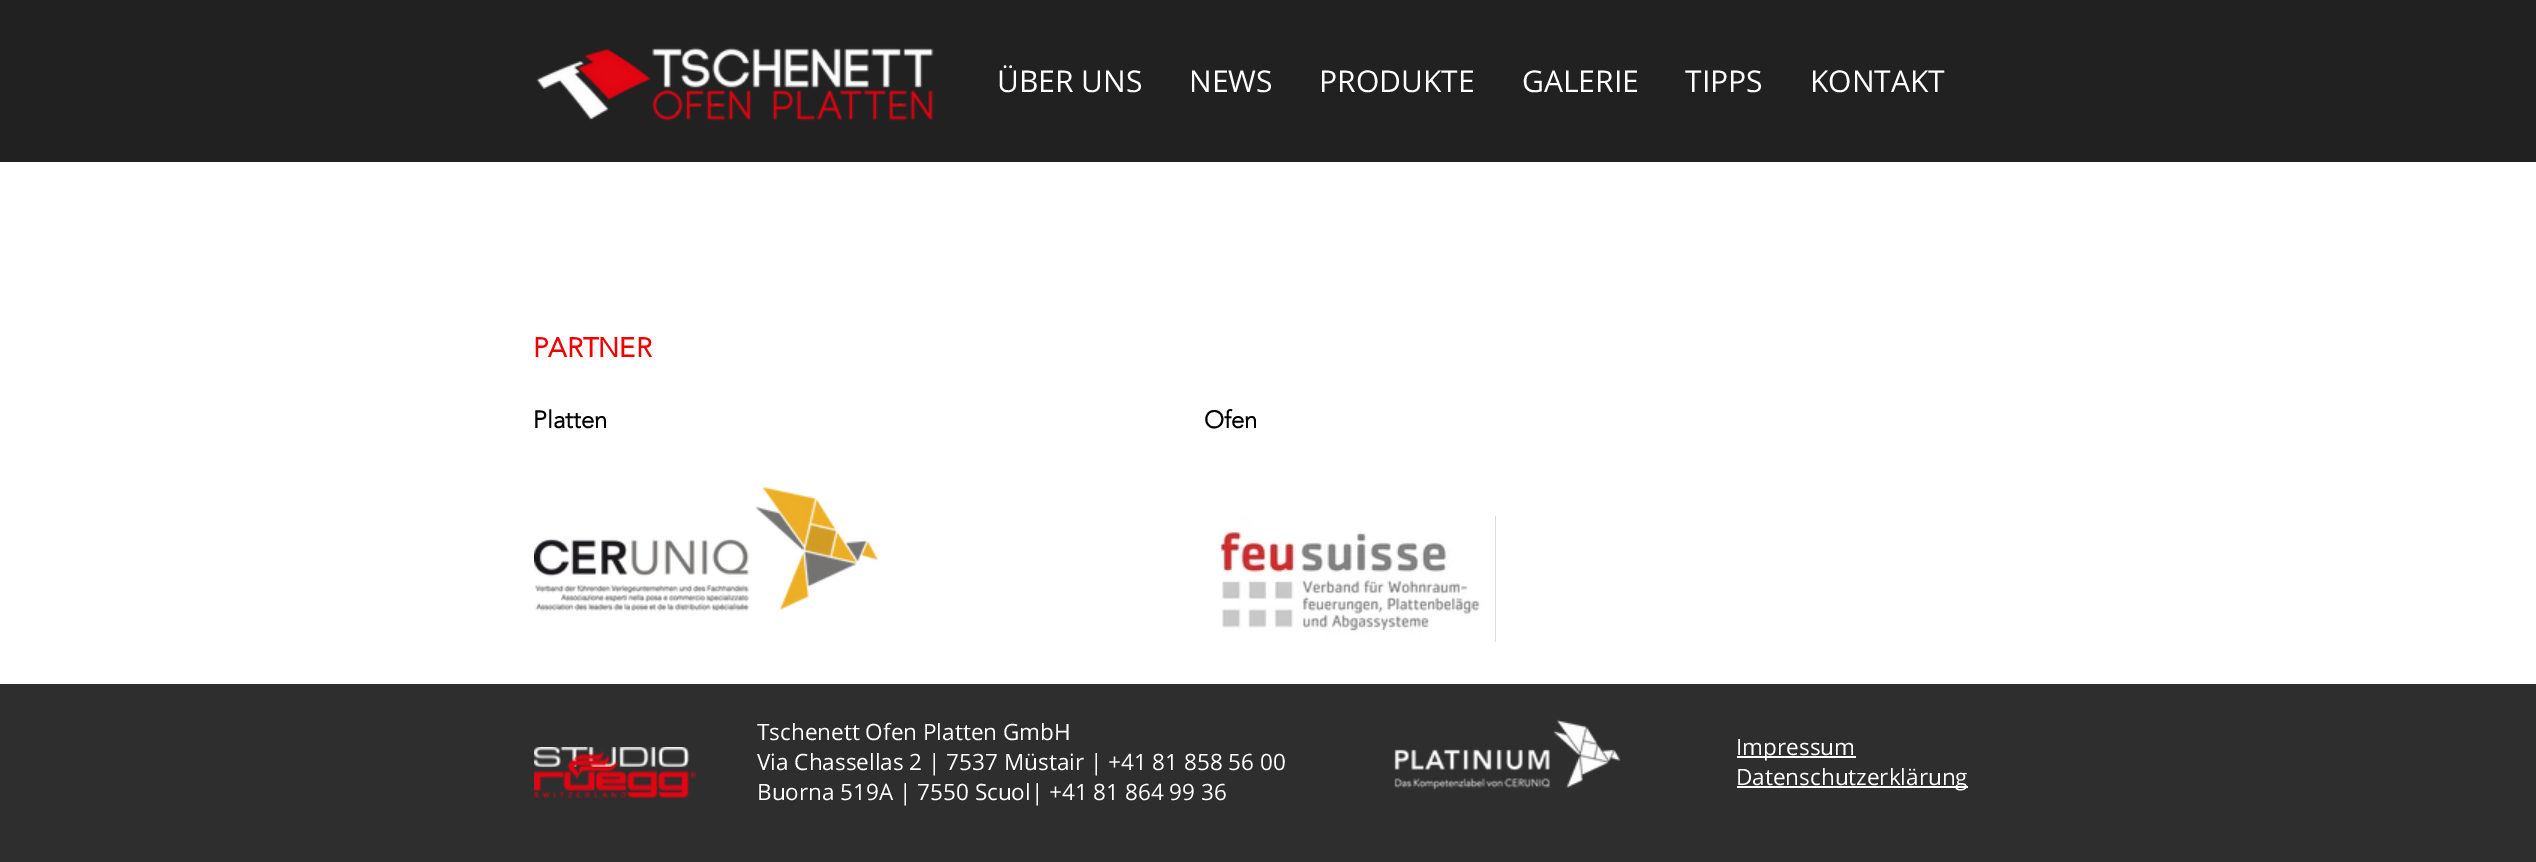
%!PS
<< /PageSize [2536 862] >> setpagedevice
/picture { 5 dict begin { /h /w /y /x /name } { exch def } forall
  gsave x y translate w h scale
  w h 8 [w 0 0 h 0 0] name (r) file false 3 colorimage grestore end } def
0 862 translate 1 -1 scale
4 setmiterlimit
1 setgray
0 0 2536 862 rectfill
0.129 setgray
0 0 2536 162 rectfill
(img1.rgb) 536 47 398 74 picture
/OpenSans-Regular [30 0 0 -30 0 0] selectfont
1 setgray
997 92 moveto (ÜBER UNS) show
1189 92 moveto (NEWS) show
1319 92 moveto (PRODUKTE) show
1522 92 moveto (GALERIE) show
1685 92 moveto (TIPPS) show
1810 92 moveto (KONTAKT) show
/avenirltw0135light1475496-Bold [27 0 0 -27 0 0] selectfont
0.949 0 0 setrgbcolor
533 357 moveto (PARTNER) show
/avenirltw0135light1475496-Bold [24 0 0 -24 0 0] selectfont
0 setgray
533 428 moveto (Platten) show
1204 428 moveto (Ofen) show
(img2.rgb) 534 487 344 124 picture
0.729 0.722 0.722 setrgbcolor
1495 516 1 126 rectfill
(img3.rgb) 1205 516 291 126 picture
0.184 0.18 0.18 setrgbcolor
0 684 2536 178 rectfill
(img4.rgb) 534 747 162 51 picture
/OpenSans-Regular [22.5 0 0 -22.5 0 0] selectfont
1 setgray
757 740 moveto (Tschenett Ofen Platten GmbH) show
757 770 moveto (Via Chassellas 2 | 7537 Müstair | +41 81 858 56 00) show
757 800 moveto (Buorna 519A | 7550 Scuol| +41 81 864 99 36) show
(img5.rgb) 1394 719 227 71 picture
1737 756 119 2 rectfill
1736 755 moveto (Impressum) show
1737 786 231 2 rectfill
1736 785 moveto (Datenschutzerklärung) show
showpage
